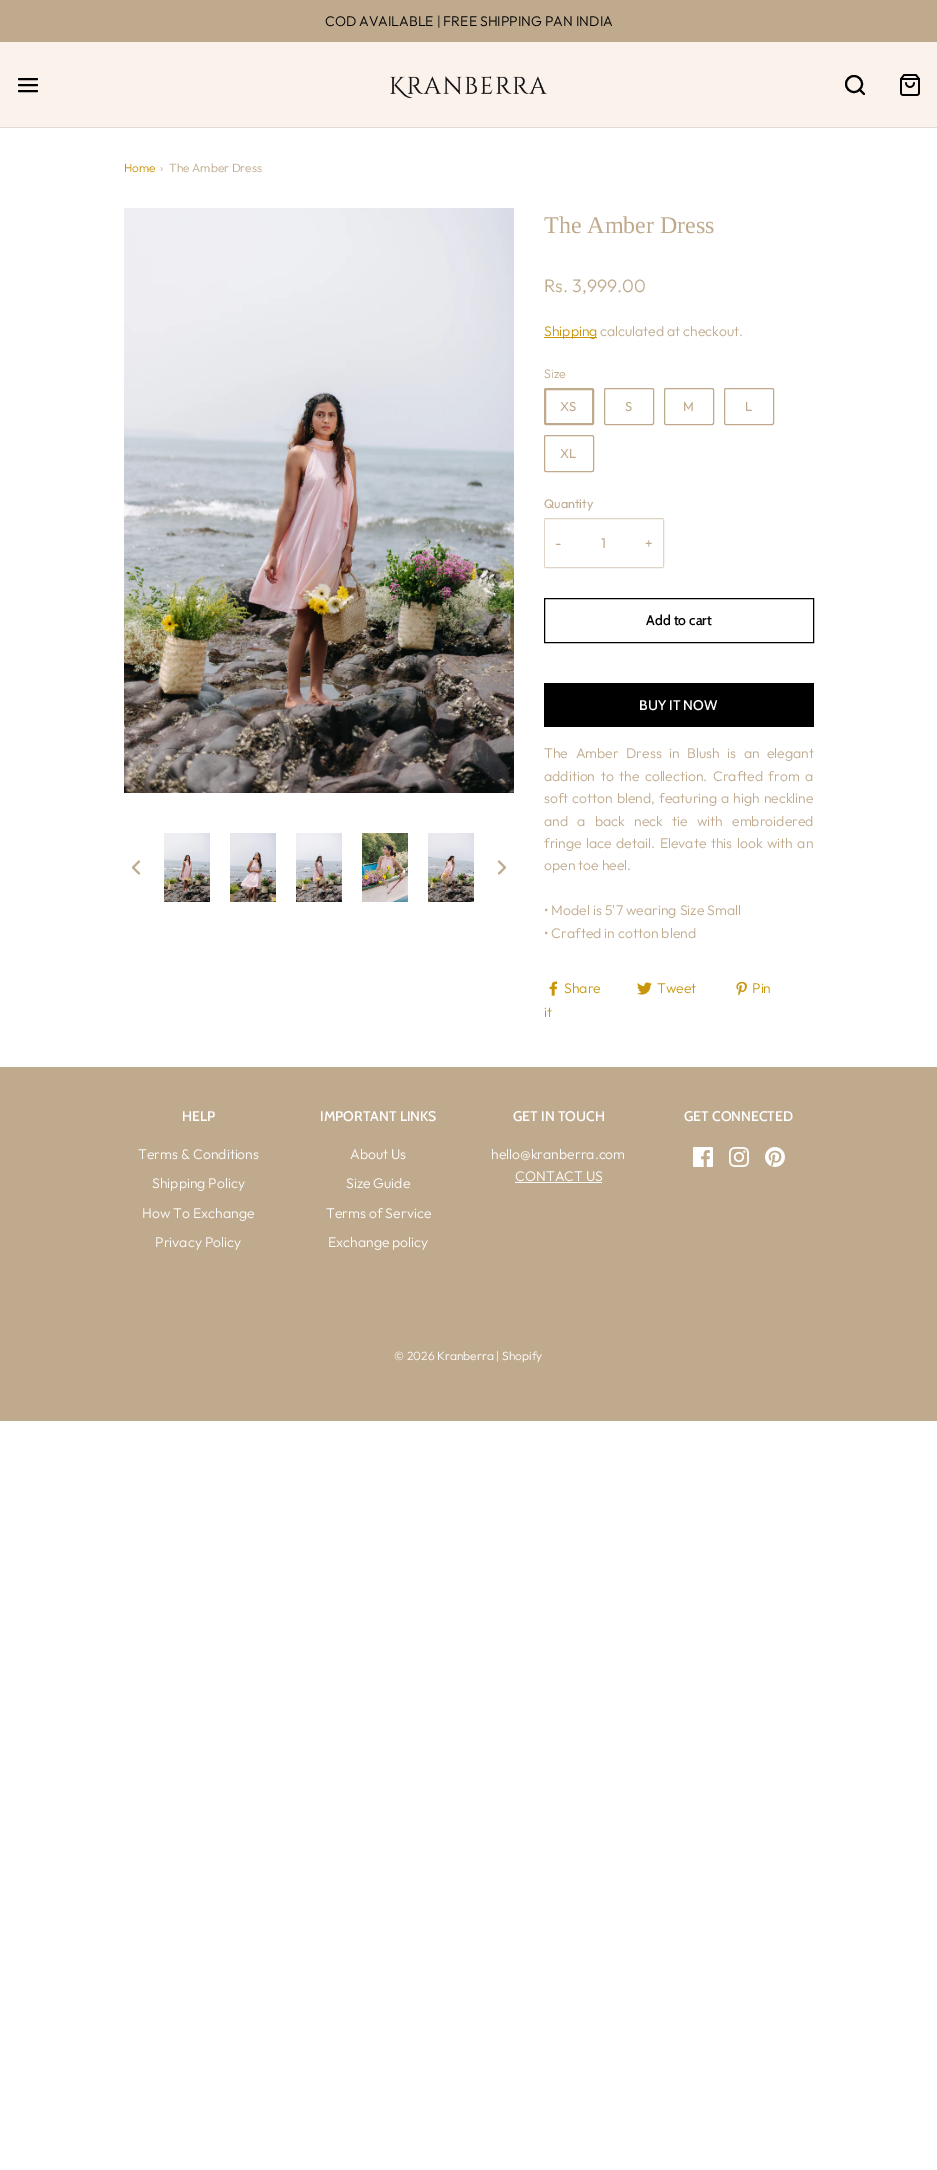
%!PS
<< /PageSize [937 2170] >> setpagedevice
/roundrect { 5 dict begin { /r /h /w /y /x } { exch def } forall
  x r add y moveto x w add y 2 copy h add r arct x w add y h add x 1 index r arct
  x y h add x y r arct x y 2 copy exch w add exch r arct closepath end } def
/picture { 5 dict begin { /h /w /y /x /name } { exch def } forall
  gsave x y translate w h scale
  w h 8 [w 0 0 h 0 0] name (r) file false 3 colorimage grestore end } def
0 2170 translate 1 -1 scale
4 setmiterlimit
1 setgray
0 0 937 2170 rectfill
0.749 0.667 0.553 setrgbcolor
0 0 937 42 rectfill
/Outfit-Light [14 0 0 -14 0 0] selectfont
0 setgray
325 26 moveto (COD AVAILABLE | FREE SHIPPING PAN INDIA) show
0.988 0.949 0.925 setrgbcolor
0 42 937 85 rectfill
0.89 0.855 0.831 setrgbcolor
0 127 937 1 rectfill
0 setgray
2 setlinewidth
1 setlinecap
1 setlinejoin
newpath 19 85 moveto 37 85 lineto 19 79 moveto 37 79 lineto 19 91 moveto 37 91 lineto stroke
(img1.rgb) 390 76 157 23 picture
0 setlinecap
0 setlinejoin
newpath 854 84 8 0 360 arc closepath stroke
1 setlinecap
1 setlinejoin
newpath 864 94 moveto 859.5 89.5 lineto stroke
(img2.rgb) 900 74 20 22 picture
/Outfit-Light [12 0 0 -12 0 0] selectfont
0.788 0.588 0.043 setrgbcolor
124 172 moveto (Home) show
0.749 0.667 0.553 setrgbcolor
160 172 moveto (›) show
169 172 moveto (The Amber Dress) show
(img3.rgb) 124 208 390 585 picture
newpath 139 873.5 moveto 133 867.5 lineto 139 861.5 lineto stroke
(img4.rgb) 164 833 46 69 picture
(img5.rgb) 230 833 46 69 picture
(img6.rgb) 296 833 46 69 picture
(img7.rgb) 362 833 46 69 picture
(img8.rgb) 428 833 46 69 picture
newpath 499 873.5 moveto 505 867.5 lineto 499 861.5 lineto stroke
/LiberationSerif-Regular [24 0 0 -24 0 0] selectfont
544 233 moveto (The Amber Dress) show
/Outfit-Light [18 0 0 -18 0 0] selectfont
544 292 moveto (Rs. 3,999.00) show
0.788 0.588 0.043 setrgbcolor
544 337 53 1 rectfill
/Outfit-Light [14 0 0 -14 0 0] selectfont
544 336 moveto (Shipping) show
0.749 0.667 0.553 setrgbcolor
600 336 moveto (calculated at checkout.) show
/Outfit-Light [12.5 0 0 -12.5 0 0] selectfont
544 378 moveto (Size) show
1 setlinewidth
0 setlinecap
0 setlinejoin
545.5 389.5 47 34 0.5 roundrect stroke
544.5 388.5 49 36 1.5 roundrect stroke
/Outfit-Regular [13 0 0 -13 0 0] selectfont
560 411 moveto (XS) show
604.5 388.5 49 36 1.5 roundrect stroke
625 411 moveto (S) show
664.5 388.5 49 36 1.5 roundrect stroke
683 411 moveto (M) show
724.5 388.5 49 36 1.5 roundrect stroke
745 411 moveto (L) show
544.5 435.5 49 36 1.5 roundrect stroke
560 458 moveto (XL) show
/Outfit-Regular [12.5 0 0 -12.5 0 0] selectfont
544 508 moveto (Quantity) show
0.875 0.835 0.776 setrgbcolor
544.5 518.5 119 49 1.5 roundrect stroke
1 setgray
545 519 1 48 rectfill
/Outfit-Regular [14 0 0 -14 0 0] selectfont
0.749 0.667 0.553 setrgbcolor
555 548 moveto (-) show
601 548 moveto (1) show
1 setgray
662 519 1 48 rectfill
0.749 0.667 0.553 setrgbcolor
645 548 moveto (+) show
0 setgray
544.5 598.5 269 44 rectstroke
/Cabin-Medium [14 0 0 -14 0 0] selectfont
646 625 moveto (Add to cart) show
544 683 270 44 rectfill
1 setgray
639 710 moveto (BUY IT NOW) show
/Outfit-Light [14 0 0 -14 0 0] selectfont
0.749 0.667 0.553 setrgbcolor
544 758 moveto 4.5 0 32 (The Amber Dress in Blush is an elegant) widthshow
544 781 moveto 2.5 0 32 (addition to the collection. Crafted from a) widthshow
544 803 moveto 1 0 32 (soft cotton blend, featuring a high neckline) widthshow
544 826 moveto 6.25 0 32 (and a back neck tie with embroidered) widthshow
544 848 moveto 1.5 0 32 (fringe lace detail. Elevate this look with an) widthshow
544 870 moveto (open toe heel.) show
544 915 moveto (• Model is 5'7 wearing Size Small) show
544 938 moveto (• Crafted in cotton blend) show
(img9.rgb) 549 981 9 15 picture
0.788 0.588 0.043 setrgbcolor
564 993 moveto (Share) show
(img10.rgb) 637 982 15 13 picture
657 993 moveto (Tweet) show
(img11.rgb) 736 981 11 15 picture
752 993 moveto (Pin) show
544 1017 moveto (it) show
0.749 0.667 0.553 setrgbcolor
0 1067 937 354 rectfill
/Cabin-Medium [14 0 0 -14 0 0] selectfont
1 setgray
182 1121 moveto (HELP) show
/Outfit-Light [14 0 0 -14 0 0] selectfont
138 1159 moveto (Terms & Conditions) show
152 1188 moveto (Shipping Policy) show
142 1218 moveto (How To Exchange) show
155 1247 moveto (Privacy Policy) show
/Cabin-Medium [14 0 0 -14 0 0] selectfont
320 1121 moveto (IMPORTANT LINKS) show
/Outfit-Light [14 0 0 -14 0 0] selectfont
350 1159 moveto (About Us) show
346 1188 moveto (Size Guide) show
326 1218 moveto (Terms of Service) show
328 1247 moveto (Exchange policy) show
/Cabin-Medium [14 0 0 -14 0 0] selectfont
513 1121 moveto (GET IN TOUCH) show
/Outfit-Light [14 0 0 -14 0 0] selectfont
491 1159 moveto (hello@kranberra.com) show
515 1181 moveto (CONTACT US) show
515 1182 87 1 rectfill
/Cabin-Medium [14 0 0 -14 0 0] selectfont
684 1121 moveto (GET CONNECTED) show
(img12.rgb) 693 1147 20 20 picture
(img13.rgb) 729 1147 20 20 picture
(img14.rgb) 765 1147 20 20 picture
/Outfit-Light [12 0 0 -12 0 0] selectfont
394 1360 moveto (© 2026 Kranberra | Shopify) show
showpage
